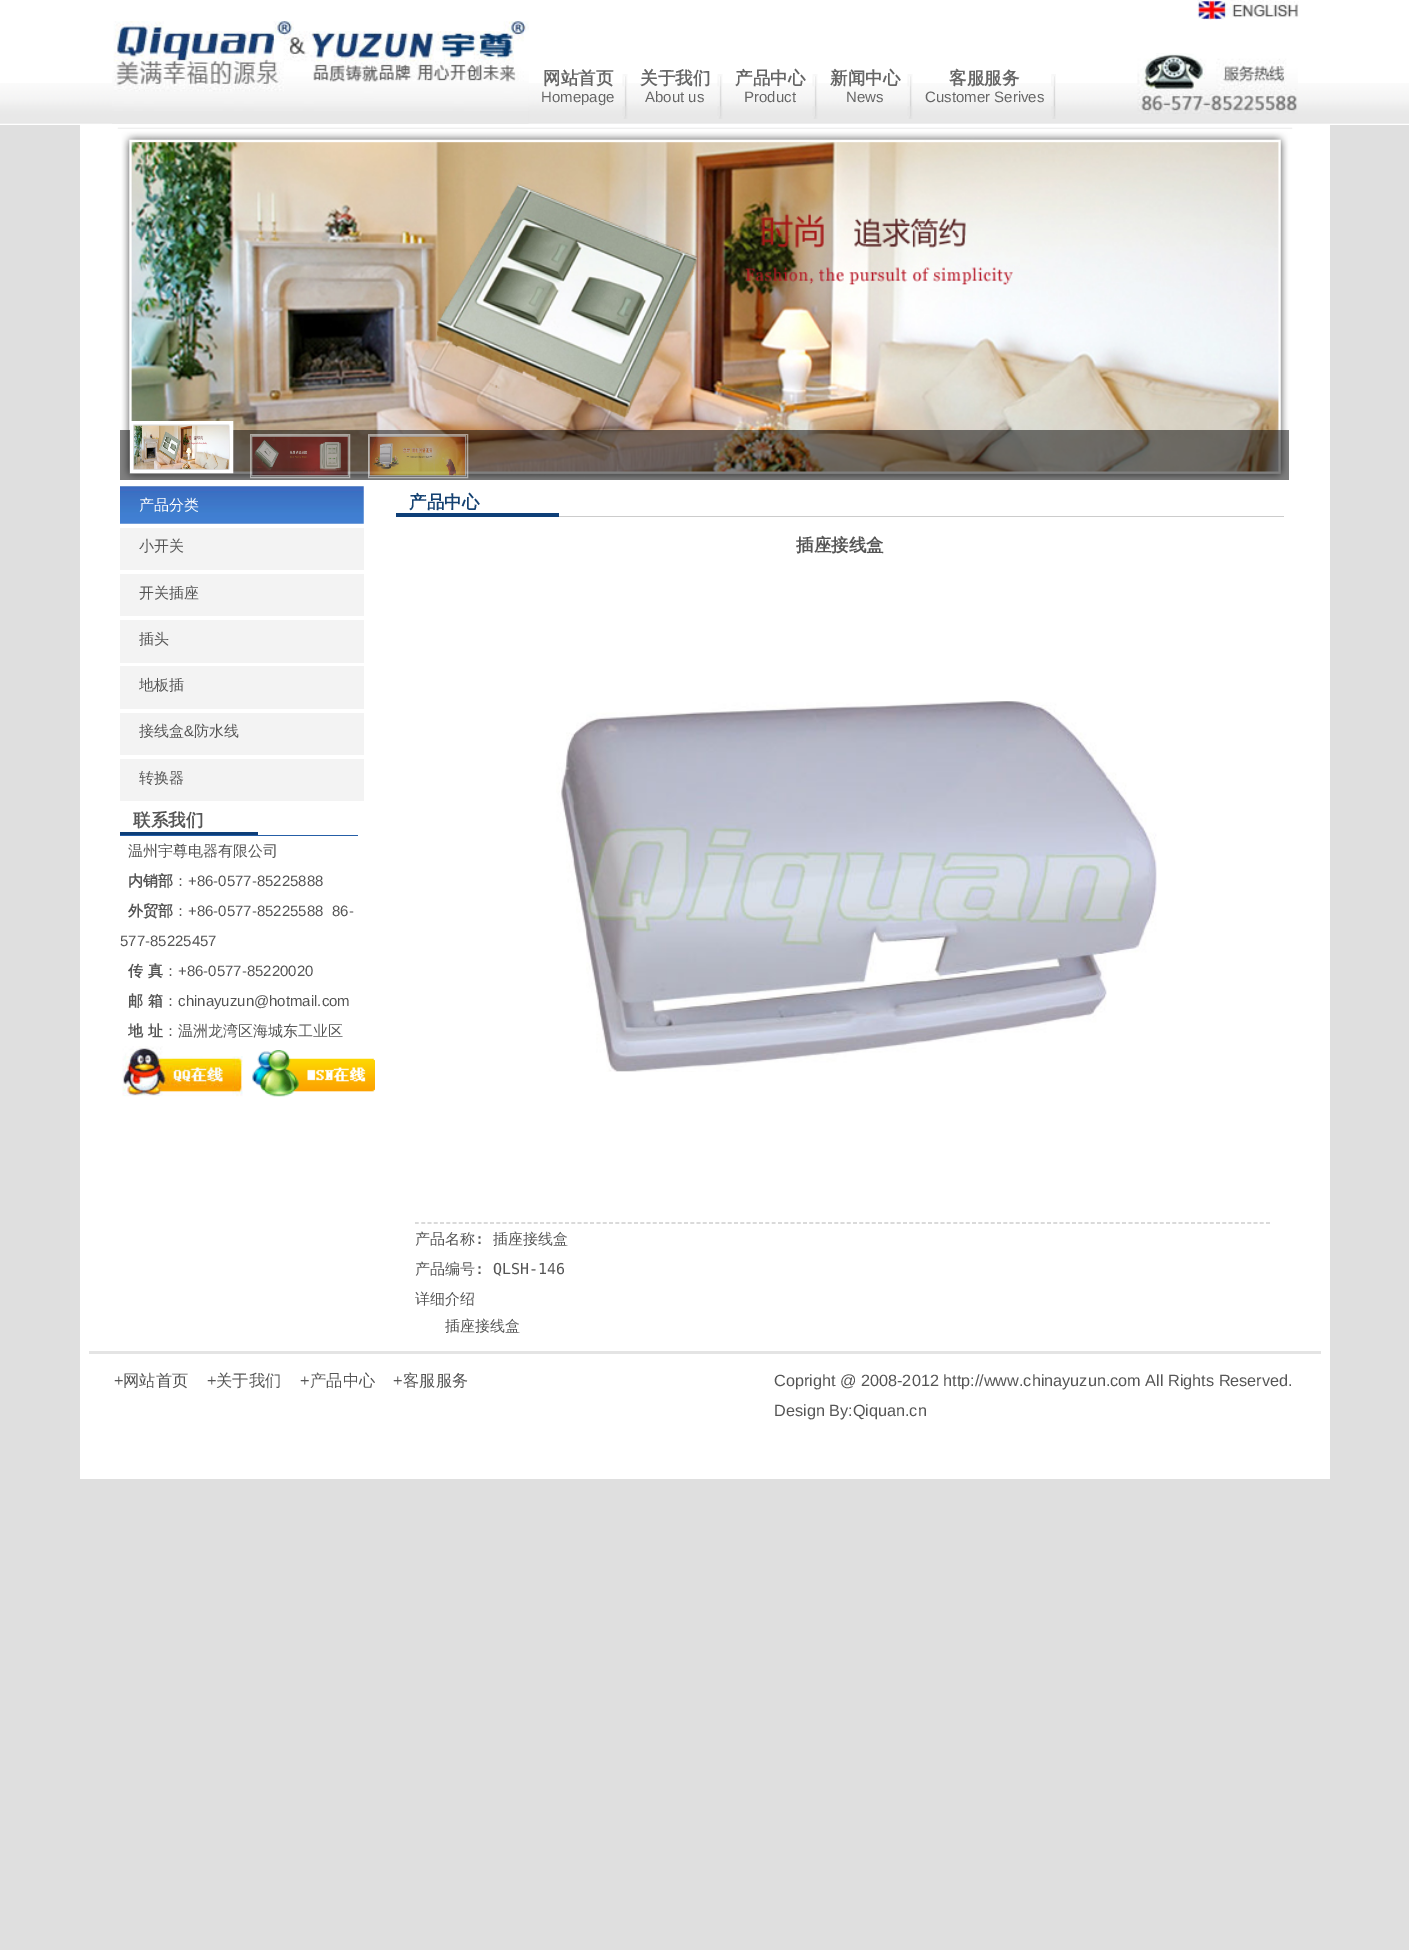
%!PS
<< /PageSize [1409 1950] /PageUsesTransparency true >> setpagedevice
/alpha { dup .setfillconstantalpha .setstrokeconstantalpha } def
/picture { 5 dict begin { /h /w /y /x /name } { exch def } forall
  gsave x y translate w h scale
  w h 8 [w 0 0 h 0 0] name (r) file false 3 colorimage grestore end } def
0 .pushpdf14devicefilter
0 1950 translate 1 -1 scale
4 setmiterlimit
0.875 setgray
0 0 1409 1950 rectfill
1 setgray
0 0 1409 125 rectfill
(img1.rgb) 0 83 1409 41 picture
(img2.rgb) 112 21 417 103 picture
(img3.rgb) 622 74 6 45 picture
/WenQuanYiZenHei-Bold [17.5 0 0 -17.5 0 0] selectfont
0.4 setgray
543 84 moveto (网站首页) show
/LiberationSans-Regular [15 0 0 -15 0 0] selectfont
541 102 moveto (Homepage) show
(img3.rgb) 717 74 6 45 picture
/WenQuanYiZenHei-Bold [17.5 0 0 -17.5 0 0] selectfont
640 84 moveto (关于我们) show
/LiberationSans-Regular [15 0 0 -15 0 0] selectfont
645 102 moveto (About us) show
(img4.rgb) 812 74 6 45 picture
/WenQuanYiZenHei-Bold [17.5 0 0 -17.5 0 0] selectfont
735 84 moveto (产品中心) show
/LiberationSans-Regular [15 0 0 -15 0 0] selectfont
744 102 moveto (Product) show
(img4.rgb) 907 74 6 45 picture
/WenQuanYiZenHei-Bold [17.5 0 0 -17.5 0 0] selectfont
830 84 moveto (新闻中心) show
/LiberationSans-Regular [15 0 0 -15 0 0] selectfont
846 102 moveto (News) show
(img5.rgb) 1051 74 5 45 picture
/WenQuanYiZenHei-Bold [17.5 0 0 -17.5 0 0] selectfont
949 84 moveto (客服服务) show
/LiberationSans-Regular [15 0 0 -15 0 0] selectfont
925 102 moveto (Customer Serives) show
(img6.rgb) 1197 0 102 20 picture
(img7.rgb) 1137 53 161 61 picture
1 setgray
80 125 1250 1354 rectfill
(img8.rgb) 117 127 1176 353 picture
0.5 alpha
0 setgray
120 430 1169 50 rectfill
1 alpha
1 setgray
3 setlinewidth
131.5 422.5 100 49 rectstroke
(img9.rgb) 133 424 97 46 picture
0.5 alpha
1 setlinewidth
250.5 434.5 99 43 rectstroke
1 alpha
(img10.rgb) 251 435 98 42 picture
0.5 alpha
368.5 434.5 99 43 rectstroke
1 alpha
(img11.rgb) 368 435 99 42 picture
(img12.rgb) 120 486 244 38 picture
/WenQuanYiZenHei-Medium [15 0 0 -15 0 0] selectfont
139 510 moveto (产品分类) show
0.953 setgray
120 528 244 42 rectfill
0.333 setgray
139 551 moveto (小开关) show
0.953 setgray
120 574 244 42 rectfill
0.333 setgray
139 598 moveto (开关插座) show
0.953 setgray
120 620 244 43 rectfill
0.333 setgray
139 644 moveto (插头) show
0.953 setgray
120 666 244 43 rectfill
0.333 setgray
139 690 moveto (地板插) show
0.953 setgray
120 713 244 42 rectfill
0.333 setgray
139 736 moveto (接线盒) show
/LiberationSans-Regular [15 0 0 -15 0 0] selectfont
184 736 moveto (&) show
/WenQuanYiZenHei-Medium [15 0 0 -15 0 0] selectfont
194 736 moveto (防水线) show
0.953 setgray
120 759 244 42 rectfill
0.333 setgray
139 783 moveto (转换器) show
0.145 0.369 0.655 setrgbcolor
120 835 238 1 rectfill
0.051 0.243 0.471 setrgbcolor
120 832 138 3 rectfill
/WenQuanYiZenHei-Bold [17.5 0 0 -17.5 0 0] selectfont
0.333 setgray
133 826 moveto (联系我们) show
/WenQuanYiZenHei-Medium [15 0 0 -15 0 0] selectfont
128 856 moveto (温州宇尊电器有限公司) show
/WenQuanYiZenHei-Bold [15 0 0 -15 0 0] selectfont
128 886 moveto (内销部) show
/WenQuanYiZenHei-Medium [15 0 0 -15 0 0] selectfont
173 886 moveto (：) show
/LiberationSans-Regular [15 0 0 -15 0 0] selectfont
188 886 moveto (+86-0577-85225888) show
/WenQuanYiZenHei-Bold [15 0 0 -15 0 0] selectfont
128 916 moveto (外贸部) show
/WenQuanYiZenHei-Medium [15 0 0 -15 0 0] selectfont
173 916 moveto (：) show
/LiberationSans-Regular [15 0 0 -15 0 0] selectfont
188 916 moveto (+86-0577-85225588  86-) show
120 946 moveto (577-85225457) show
/WenQuanYiZenHei-Bold [15 0 0 -15 0 0] selectfont
128 976 moveto (传) show
148 976 moveto (真) show
/WenQuanYiZenHei-Medium [15 0 0 -15 0 0] selectfont
163 976 moveto (：) show
/LiberationSans-Regular [15 0 0 -15 0 0] selectfont
178 976 moveto (+86-0577-85220020) show
/WenQuanYiZenHei-Bold [15 0 0 -15 0 0] selectfont
128 1006 moveto (邮) show
148 1006 moveto (箱) show
/WenQuanYiZenHei-Medium [15 0 0 -15 0 0] selectfont
163 1006 moveto (：) show
/LiberationSans-Regular [15 0 0 -15 0 0] selectfont
178 1006 moveto (chinayuzun@hotmail.com) show
/WenQuanYiZenHei-Bold [15 0 0 -15 0 0] selectfont
128 1036 moveto (地) show
148 1036 moveto (址) show
/WenQuanYiZenHei-Medium [15 0 0 -15 0 0] selectfont
163 1036 moveto (：温洲龙湾区海城东工业区) show
(img13.rgb) 122 1046 121 51 picture
(img14.rgb) 252 1050 123 47 picture
0.8 setgray
559 516 725 1 rectfill
0.055 0.247 0.471 setrgbcolor
396 513 163 4 rectfill
/WenQuanYiZenHei-Bold [17.5 0 0 -17.5 0 0] selectfont
0.078 0.255 0.443 setrgbcolor
409 508 moveto (产品中心) show
0.333 setgray
796 551 moveto (插座接线盒) show
0.8 setgray
1.2 setlinewidth
[3.75 2.51] 0 setdash
newpath 415 1223 moveto 1271 1223 lineto stroke
(img15.rgb) 556 701 601 371 picture
/WenQuanYiZenHei-Medium [15 0 0 -15 0 0] selectfont
0.333 setgray
415 1244 moveto (产品名称) show
/DejaVuSansMono-Regular [15 0 0 -15 0 0] selectfont
475 1244 moveto (:) show
/WenQuanYiZenHei-Medium [15 0 0 -15 0 0] selectfont
493 1244 moveto (插座接线盒) show
415 1274 moveto (产品编号) show
/DejaVuSansMono-Regular [15 0 0 -15 0 0] selectfont
475 1274 moveto (: QLSH-146) show
/WenQuanYiZenHei-Medium [15 0 0 -15 0 0] selectfont
415 1304 moveto (详细介绍) show
445 1331 moveto (插座接线盒) show
0.894 setgray
89 1351 1232 3 rectfill
/LiberationSans-Regular [16.25 0 0 -16.25 0 0] selectfont
0.333 setgray
114 1386 moveto (+) show
/WenQuanYiZenHei-Medium [16.25 0 0 -16.25 0 0] selectfont
123 1386 moveto (网站首页) show
/LiberationSans-Regular [16.25 0 0 -16.25 0 0] selectfont
207 1386 moveto (+) show
/WenQuanYiZenHei-Medium [16.25 0 0 -16.25 0 0] selectfont
216 1386 moveto (关于我们) show
/LiberationSans-Regular [16.25 0 0 -16.25 0 0] selectfont
300 1386 moveto (+) show
/WenQuanYiZenHei-Medium [16.25 0 0 -16.25 0 0] selectfont
310 1386 moveto (产品中心) show
/LiberationSans-Regular [16.25 0 0 -16.25 0 0] selectfont
393 1386 moveto (+) show
/WenQuanYiZenHei-Medium [16.25 0 0 -16.25 0 0] selectfont
403 1386 moveto (客服服务) show
/LiberationSans-Regular [16.25 0 0 -16.25 0 0] selectfont
774 1386 moveto (Copright @ 2008-2012 http://www.chinayuzun.com All Rights Reserved.) show
774 1416 moveto (Design By:Qiquan.cn) show
.poppdf14devicefilter showpage
